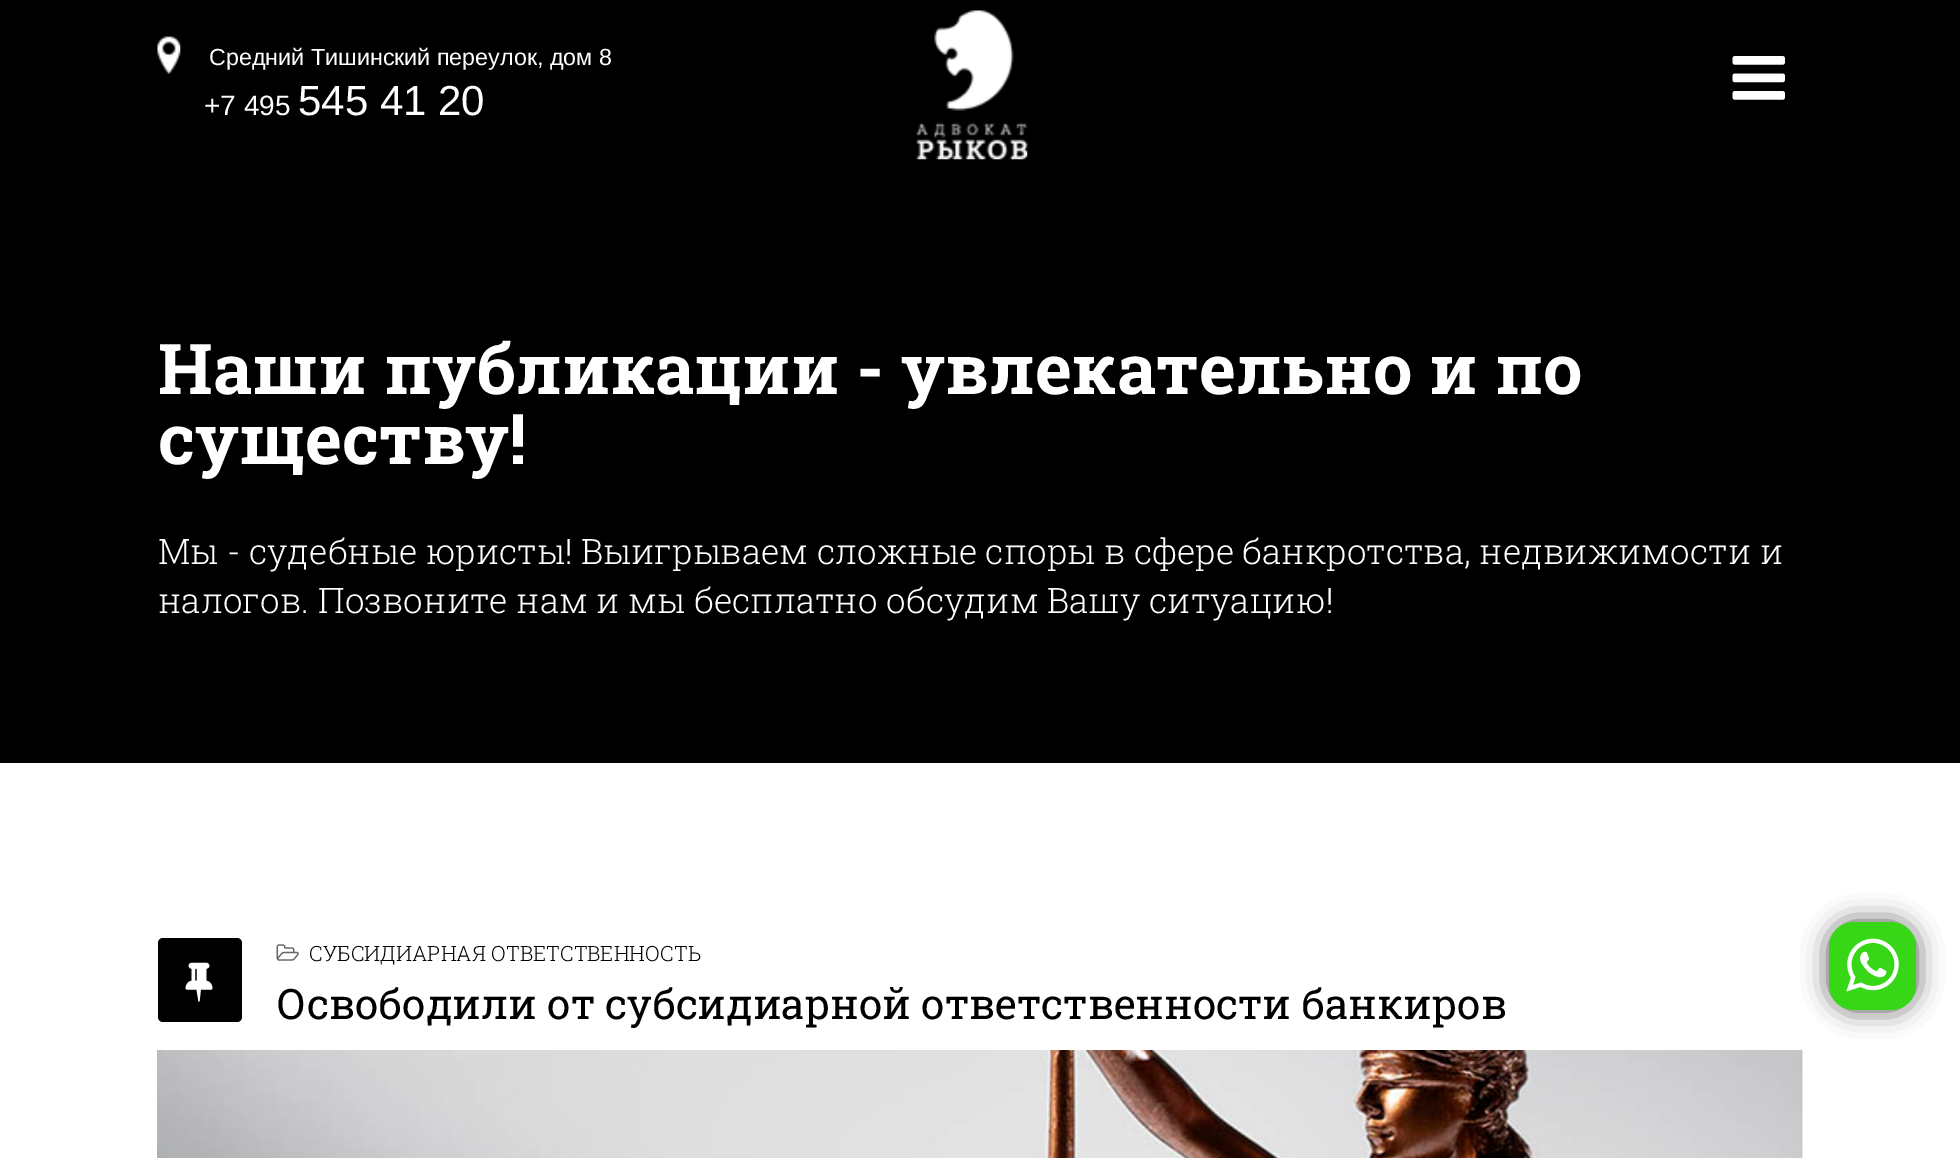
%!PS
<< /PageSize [1960 1158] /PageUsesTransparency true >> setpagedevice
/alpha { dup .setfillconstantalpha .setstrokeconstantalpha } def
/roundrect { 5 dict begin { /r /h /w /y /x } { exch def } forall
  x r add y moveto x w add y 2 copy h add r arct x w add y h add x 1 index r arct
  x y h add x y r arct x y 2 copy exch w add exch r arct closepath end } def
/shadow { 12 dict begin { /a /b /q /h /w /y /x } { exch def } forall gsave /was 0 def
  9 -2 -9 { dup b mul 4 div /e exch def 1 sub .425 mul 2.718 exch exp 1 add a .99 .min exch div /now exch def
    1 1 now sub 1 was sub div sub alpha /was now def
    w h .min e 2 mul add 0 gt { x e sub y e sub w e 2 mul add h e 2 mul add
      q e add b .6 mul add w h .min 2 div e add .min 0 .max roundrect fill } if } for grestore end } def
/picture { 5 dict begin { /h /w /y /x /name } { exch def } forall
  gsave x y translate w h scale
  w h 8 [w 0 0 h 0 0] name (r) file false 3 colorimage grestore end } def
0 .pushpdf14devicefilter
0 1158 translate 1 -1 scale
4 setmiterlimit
1 setgray
0 0 1960 1158 rectfill
0 setgray
0 0 1960 763 rectfill
(img1.rgb) 157 36 24 38 picture
/LiberationSans-Regular [23.3 0 0 -23.3 0 0] selectfont
1 setgray
209 65 moveto (Средний Тишинский переулок, дом 8) show
/LiberationSans-Regular [28 0 0 -28 0 0] selectfont
204 115 moveto (+7 495) show
/LiberationSans-Regular [42 0 0 -42 0 0] selectfont
298 115 moveto (545 41 20) show
(img2.rgb) 916 10 112 150 picture
(img3.rgb) 1732 56 53 44 picture
/RobotoSlab-Bold [70 0 0 -70 0 0] selectfont
158 394 moveto (Наши публикации - увлекательно и по) show
158 464 moveto (существу!) show
/RobotoSlab-Light [35 0 0 -35 0 0] selectfont
158 564 moveto (Мы - судебные юристы! Выигрываем сложные споры в сфере банкротства, недвижимости и) show
158 613 moveto (налогов. Позвоните нам и мы бесплатно обсудим Вашу ситуацию!) show
0 setgray
158 938 84 84 5 roundrect fill
(img4.rgb) 185 962 28 40 picture
(img5.rgb) 276 944 23 17 picture
/RobotoSlab-Light [21 0 0 -21 0 0] selectfont
309 961 moveto (СУБСИДИАРНАЯ ОТВЕТСТВЕННОСТЬ) show
/RobotoSlab-Regular [42 0 0 -42 0 0] selectfont
277 1019 moveto (Освободили от субсидиарной ответственности банкиров) show
(img6.rgb) 157 1050 1646 108 picture
0.314 setgray
1829 922 87 88 25 13 1 shadow
0.216 0.843 0.09 setrgbcolor
1829 922 87 88 25 roundrect fill
(img7.rgb) 1846 938 53 54 picture
.poppdf14devicefilter showpage
